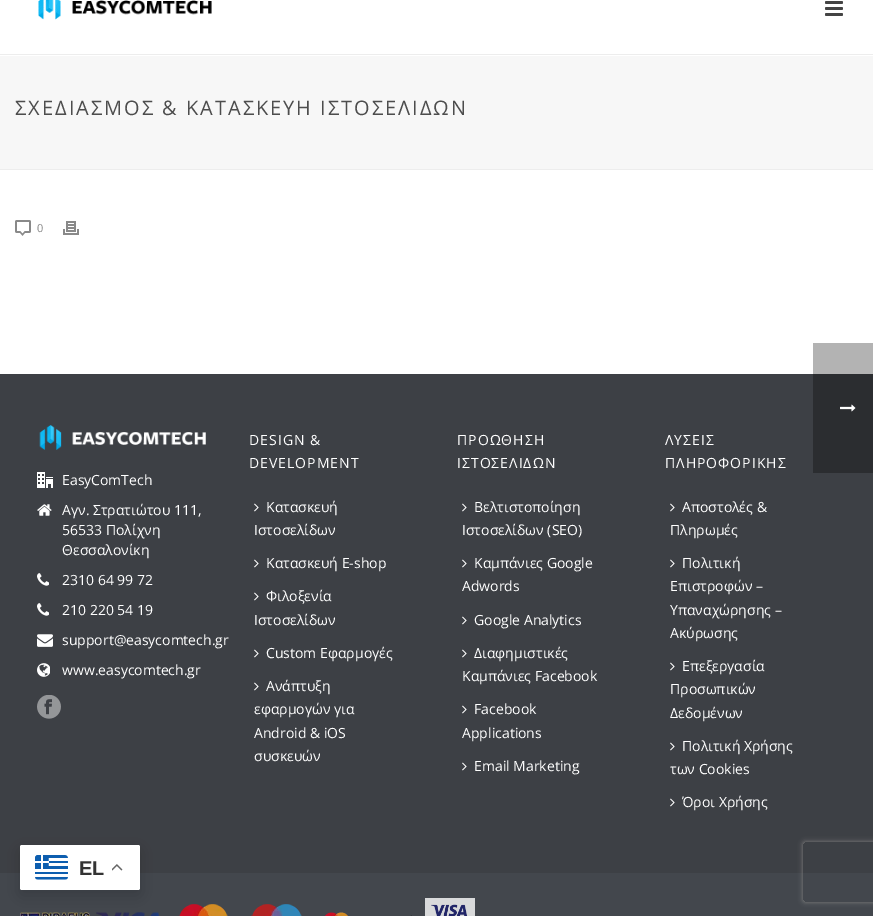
%!PS
<< /PageSize [873 916] /PageUsesTransparency true >> setpagedevice
/alpha { dup .setfillconstantalpha .setstrokeconstantalpha } def
/roundrect { 5 dict begin { /r /h /w /y /x } { exch def } forall
  x r add y moveto x w add y 2 copy h add r arct x w add y h add x 1 index r arct
  x y h add x y r arct x y 2 copy exch w add exch r arct closepath end } def
/shadow { 12 dict begin { /a /b /q /h /w /y /x } { exch def } forall gsave /was 0 def
  9 -2 -9 { dup b mul 4 div /e exch def 1 sub .425 mul 2.718 exch exp 1 add a .99 .min exch div /now exch def
    1 1 now sub 1 was sub div sub alpha /was now def
    w h .min e 2 mul add 0 gt { x e sub y e sub w e 2 mul add h e 2 mul add
      q e add b .6 mul add w h .min 2 div e add .min 0 .max roundrect fill } if } for grestore end } def
/picture { 5 dict begin { /h /w /y /x /name } { exch def } forall
  gsave x y translate w h scale
  w h 8 [w 0 0 h 0 0] name (r) file false 3 colorimage grestore end } def
0 .pushpdf14devicefilter
0 916 translate 1 -1 scale
4 setmiterlimit
1 setgray
0 0 873 916 rectfill
0.702 setgray
813 343 60 31 rectfill
0.969 setgray
0 56 873 113 rectfill
0.929 setgray
0 169 873 1 rectfill
0 54 873 1 rectfill
(img1.rgb) 38 0 174 20 picture
0.267 setgray
825 1 18 3 1.5 roundrect fill
825 7 18 3 1.5 roundrect fill
825 13 18 3 1.5 roundrect fill
/OpenSans-Regular [20 0 0 -20 0 0] selectfont
0.302 setgray
15 115 moveto 2 0 (ΣΧΕΔΙΑΣΜΟΣ & ΚΑΤΑΣΚΕΥΗ ΙΣΤΟΣΕΛΙΔΩΝ) ashow
(img2.rgb) 15 220 16 16 picture
/OpenSans-Regular [11 0 0 -11 0 0] selectfont
0.537 setgray
37 232 moveto (0) show
(img3.rgb) 63 221 16 14 picture
0.239 0.251 0.271 setrgbcolor
0 374 873 499 rectfill
0.169 0.176 0.188 setrgbcolor
813 374 60 99 rectfill
(img4.rgb) 39 425 167 25 picture
(img5.rgb) 37 472 16 16 picture
/OpenSans-Regular [14 0 0 -14 0 0] selectfont
1 setgray
62 485 moveto (EasyComTech) show
(img6.rgb) 37 504 15 12 picture
62 515 moveto (Αγν. Στρατιώτου 111,) show
62 535 moveto (56533 Πολίχνη) show
62 555 moveto (Θεσσαλονίκη) show
(img7.rgb) 37 573 12 13 picture
62 585 moveto (2310 64 99 72) show
(img7.rgb) 37 603 12 13 picture
62 615 moveto (210 220 54 19) show
(img8.rgb) 37 634 16 13 picture
62 645 moveto (support@easycomtech.gr) show
(img9.rgb) 37 663 13 14 picture
62 675 moveto (www.easycomtech.gr) show
(img10.rgb) 37 695 24 24 picture
249 445 moveto 1 0 (DESIGN &) ashow
249 468 moveto 1 0 (DEVELOPMENT) ashow
(img11.rgb) 254 503 5 9 picture
266 512 moveto (Κατασκευή) show
254 535 moveto (Ιστοσελίδων) show
(img11.rgb) 254 559 5 9 picture
266 568 moveto (Κατασκευή E-shop) show
(img11.rgb) 254 592 5 9 picture
266 601 moveto (Φιλοξενία) show
254 625 moveto (Ιστοσελίδων) show
(img11.rgb) 254 649 5 9 picture
266 658 moveto (Custom Εφαρμογές) show
(img11.rgb) 254 682 5 9 picture
266 691 moveto (Ανάπτυξη) show
254 714 moveto (εφαρμογών για) show
254 738 moveto (Android & iOS) show
254 761 moveto (συσκευών) show
457 445 moveto 1 0 (ΠΡΟΩΘΗΣΗ) ashow
457 468 moveto 1 0 (ΙΣΤΟΣΕΛΙΔΩΝ) ashow
(img11.rgb) 462 503 5 9 picture
474 512 moveto (Βελτιστοποίηση) show
462 535 moveto (Ιστοσελίδων \(SEO\)) show
(img11.rgb) 462 559 5 9 picture
474 568 moveto (Καμπάνιες Google) show
462 591 moveto (Adwords) show
(img11.rgb) 462 616 5 9 picture
474 625 moveto (Google Analytics) show
(img11.rgb) 462 649 5 9 picture
474 658 moveto (Διαφημιστικές) show
462 681 moveto (Καμπάνιες Facebook) show
(img11.rgb) 462 705 5 9 picture
474 714 moveto (Facebook) show
462 738 moveto (Applications) show
(img11.rgb) 462 762 5 9 picture
474 771 moveto (Email Marketing) show
665 445 moveto 1 0 (ΛΥΣΕΙΣ) ashow
665 468 moveto 1 0 (ΠΛΗΡΟΦΟΡΙΚΗΣ) ashow
(img11.rgb) 670 503 5 9 picture
682 512 moveto (Αποστολές &) show
670 535 moveto (Πληρωμές) show
(img11.rgb) 670 559 5 9 picture
682 568 moveto (Πολιτική) show
670 591 moveto (Επιστροφών –) show
670 615 moveto (Υπαναχώρησης –) show
670 638 moveto (Ακύρωσης) show
(img11.rgb) 670 662 5 9 picture
682 671 moveto (Επεξεργασία) show
670 694 moveto (Προσωπικών) show
670 718 moveto (Δεδομένων) show
(img11.rgb) 670 742 5 9 picture
682 751 moveto (Πολιτική Χρήσης) show
670 774 moveto (των Cookies) show
(img11.rgb) 670 798 5 9 picture
682 807 moveto (Όροι Χρήσης) show
0.263 0.278 0.302 setrgbcolor
0 873 873 43 rectfill
(img12.rgb) 20 912 70 4 picture
(img13.rgb) 96 912 63 4 picture
(img14.rgb) 179 904 49 12 picture
(img15.rgb) 251 904 51 12 picture
(img16.rgb) 325 912 87 4 picture
(img17.rgb) 425 898 50 18 picture
(img18.rgb) 840 404 16 8 picture
0 setgray
20 850 120 45 2 7.5 0.15 shadow
1 setgray
20 845 120 45 2 roundrect fill
(img19.rgb) 35 855 33 25 picture
/LiberationSans-Bold [20 0 0 -20 0 0] selectfont
0.2 setgray
79 875 moveto (EL) show
(img20.rgb) 112 864 11 7 picture
gsave
newpath 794 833 moveto 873 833 lineto 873 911 lineto 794 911 lineto closepath 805 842 moveto 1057 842 lineto 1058 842 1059 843 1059 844 curveto 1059 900 lineto 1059 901 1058 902 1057 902 curveto 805 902 lineto 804 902 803 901 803 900 curveto 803 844 lineto 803 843 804 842 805 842 curveto closepath eoclip newpath
0.502 setgray
803 842 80 60 2 2.5 1 shadow
grestore
.poppdf14devicefilter showpage
